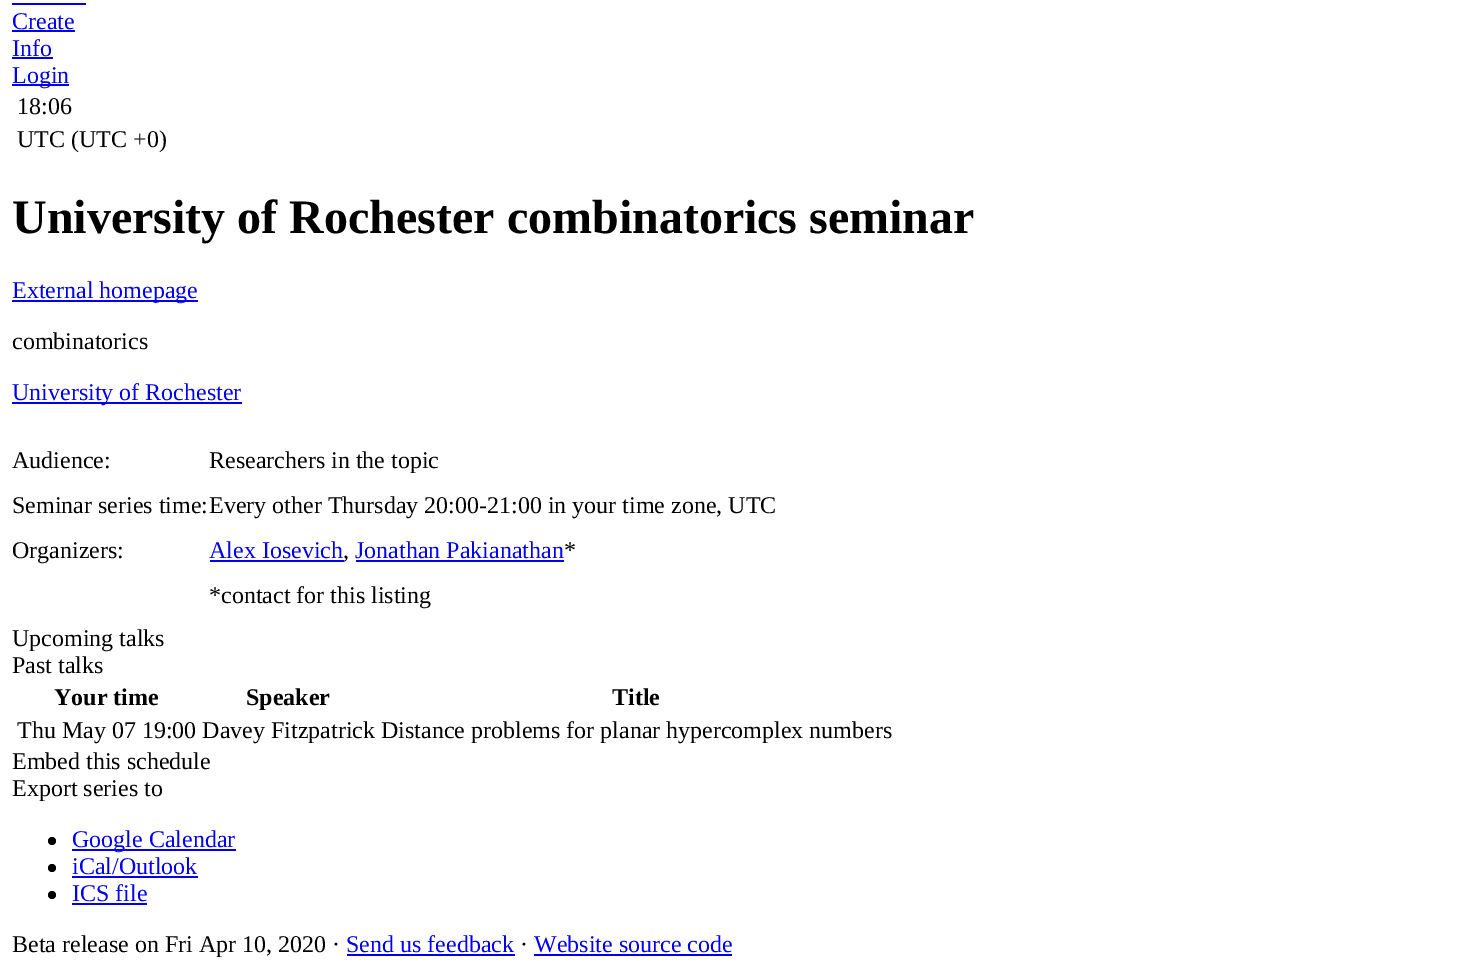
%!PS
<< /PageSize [1466 970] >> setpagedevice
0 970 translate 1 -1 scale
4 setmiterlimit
1 setgray
0 0 1466 970 rectfill
0 0 0.933 setrgbcolor
12 3 74 2 rectfill
/LiberationSerif-Regular [24 0 0 -24 0 0] selectfont
12 29 moveto (Create) show
12 30 63 2 rectfill
12 56 moveto (Info) show
12 57 41 2 rectfill
12 84 57 2 rectfill
12 83 moveto (Login) show
0 setgray
17 114 moveto (18:06) show
17 147 moveto (UTC \(UTC +0\)) show
/LiberationSerif-Bold [48 0 0 -48 0 0] selectfont
12 233 moveto (University of Rochester combinatorics seminar) show
0 0 0.933 setrgbcolor
12 300 186 2 rectfill
/LiberationSerif-Regular [24 0 0 -24 0 0] selectfont
12 298 moveto (External homepage) show
0 setgray
12 349 moveto (combinatorics) show
0 0 0.933 setrgbcolor
12 402 230 2 rectfill
12 400 moveto (University of Rochester) show
0 setgray
12 468 moveto (Audience:) show
209 468 moveto (Researchers in the topic) show
12 513 moveto (Seminar series time:) show
209 513 moveto (Every other Thursday 20:00-21:00 in your time zone, UTC) show
12 558 moveto (Organizers:) show
0 0 0.933 setrgbcolor
209 558 moveto (Alex Iosevich) show
210 560 134 2 rectfill
355 558 moveto (Jonathan Pakianathan) show
356 560 208 2 rectfill
0 setgray
564 558 moveto (*) show
343 558 moveto (,) show
209 603 moveto (*contact for this listing) show
12 646 moveto (Upcoming talks) show
12 673 moveto (Past talks) show
/LiberationSerif-Bold [24 0 0 -24 0 0] selectfont
54 705 moveto (Your time) show
246 705 moveto (Speaker) show
612 705 moveto (Title) show
/LiberationSerif-Regular [24 0 0 -24 0 0] selectfont
17 738 moveto (Thu May 07 19:00 Davey Fitzpatrick Distance problems for planar hypercomplex numbers) show
12 769 moveto (Embed this schedule) show
12 796 moveto (Export series to) show
newpath 52 841 4 0 360 arc closepath fill
0 0 0.933 setrgbcolor
72 849 164 2 rectfill
72 847 moveto (Google Calendar) show
0 setgray
newpath 52 868 4 0 360 arc closepath fill
0 0 0.933 setrgbcolor
72 874 moveto (iCal/Outlook) show
72 876 126 2 rectfill
0 setgray
newpath 52 895 4 0 360 arc closepath fill
0 0 0.933 setrgbcolor
72 901 moveto (ICS file) show
72 903 75 2 rectfill
0 setgray
12 952 moveto (Beta release on Fri Apr 10, 2020 ·) show
0 0 0.933 setrgbcolor
346 952 moveto (Send us feedback) show
347 954 168 2 rectfill
0 setgray
520 952 moveto (·) show
0 0 0.933 setrgbcolor
534 952 moveto (Website source code) show
534 954 198 2 rectfill
showpage
